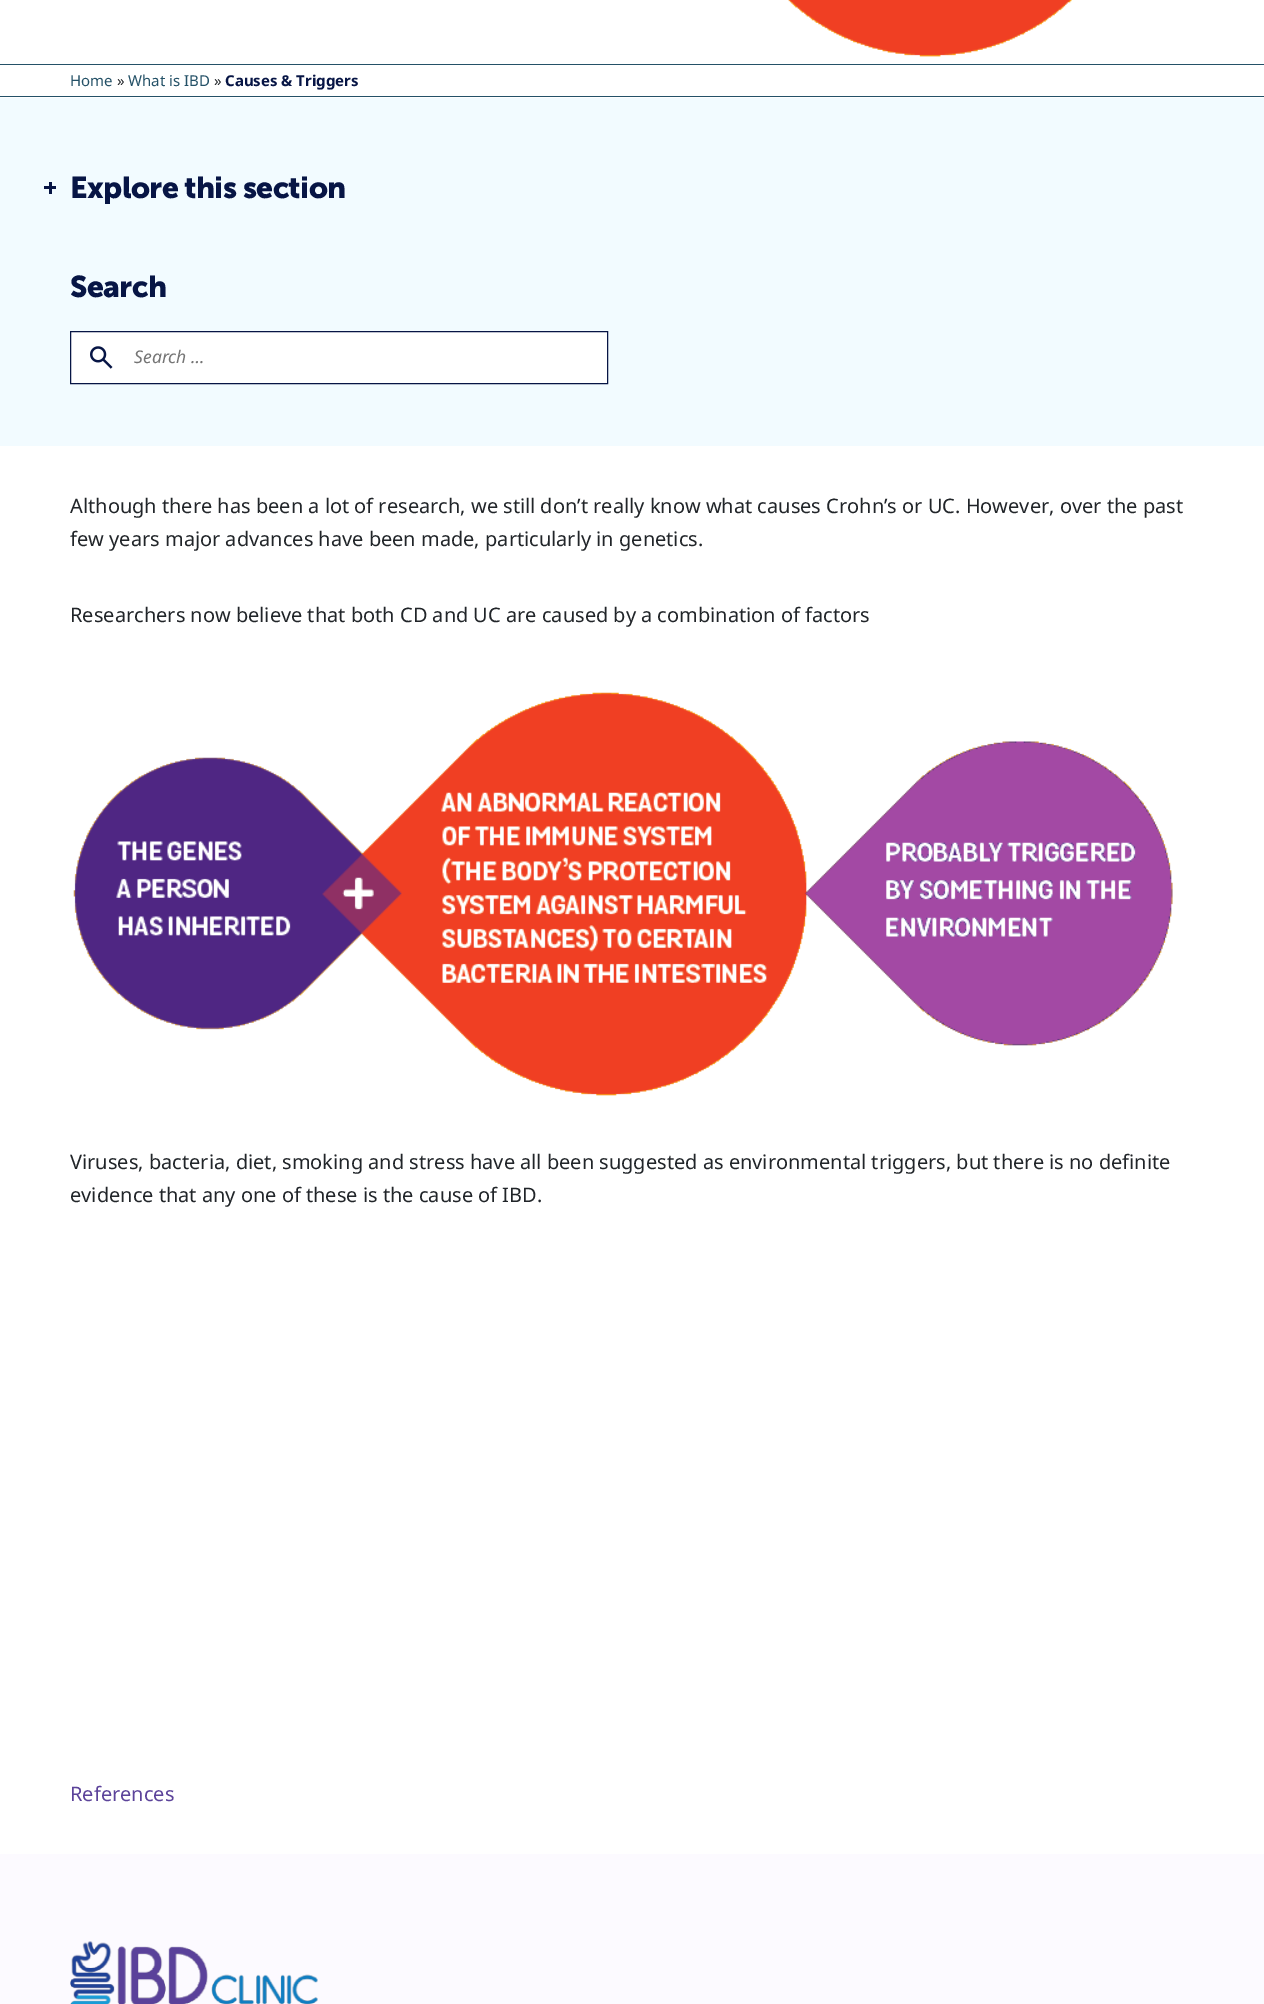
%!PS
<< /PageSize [1264 2004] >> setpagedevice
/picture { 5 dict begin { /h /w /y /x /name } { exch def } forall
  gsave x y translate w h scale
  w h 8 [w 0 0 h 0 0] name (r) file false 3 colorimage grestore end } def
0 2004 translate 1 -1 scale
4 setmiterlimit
1 setgray
0 0 1264 2004 rectfill
(img1.rgb) 788 0 284 57 picture
0.141 0.318 0.404 setrgbcolor
0 64 1264 1 rectfill
0 96 1264 1 rectfill
/NotoSans-Regular [15 0 0 -15 0 0] selectfont
70 86 moveto (Home) show
0.129 0.145 0.161 setrgbcolor
117 86 moveto (») show
0.141 0.318 0.404 setrgbcolor
128 86 moveto (What is IBD) show
0.129 0.145 0.161 setrgbcolor
214 86 moveto (») show
/NotoSans-Bold [15 0 0 -15 0 0] selectfont
0.027 0.082 0.271 setrgbcolor
225 86 moveto (Causes & Triggers) show
0.949 0.984 1 setrgbcolor
0 98 1264 348 rectfill
0.027 0.082 0.271 setrgbcolor
44 186 12 3 rectfill
49 182 3 12 rectfill
/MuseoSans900-Bold [30 0 0 -30 0 0] selectfont
70 198 moveto -0.6 0 (Explore this section) ashow
70 297 moveto -0.6 0 (Search) ashow
1 setgray
newpath 70.5 331.5 moveto 607.5 331.5 lineto 607.5 383.5 lineto 70.5 383.5 lineto closepath gsave fill grestore
0.027 0.082 0.271 setrgbcolor
stroke
(img2.rgb) 90 346 23 23 picture
/NotoSans-Italic [17.5 0 0 -17.5 0 0] selectfont
0.459 setgray
134 363 moveto (Search …) show
/NotoSans-Regular [20 0 0 -20 0 0] selectfont
0.129 0.145 0.161 setrgbcolor
70 513 moveto (Although there has been a lot of research, we still don’t really know what causes Crohn’s or UC. However, over the past) show
70 546 moveto (few years major advances have been made, particularly in genetics.) show
70 622 moveto (Researchers now believe that both CD and UC are caused by a combination of factors) show
(img3.rgb) 73 692 1100 404 picture
70 1169 moveto (Viruses, bacteria, diet, smoking and stress have all been suggested as environmental triggers, but there is no definite) show
70 1202 moveto (evidence that any one of these is the cause of IBD.) show
0.361 0.263 0.604 setrgbcolor
70 1801 moveto (References) show
0.988 0.98 1 setrgbcolor
0 1854 1264 150 rectfill
(img4.rgb) 70 1941 248 63 picture
showpage
